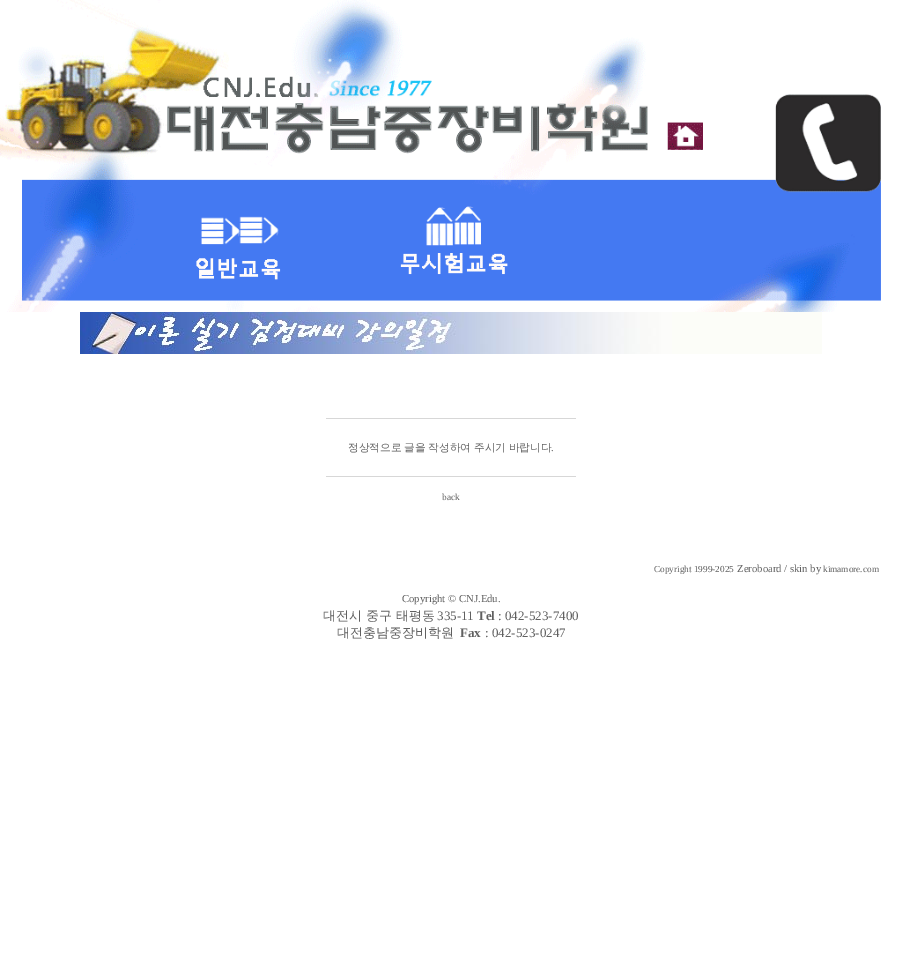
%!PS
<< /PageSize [902 974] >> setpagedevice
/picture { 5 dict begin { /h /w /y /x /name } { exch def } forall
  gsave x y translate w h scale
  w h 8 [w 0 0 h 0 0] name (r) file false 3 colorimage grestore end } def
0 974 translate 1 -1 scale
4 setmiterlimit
1 setgray
0 0 902 974 rectfill
(img1.rgb) 0 0 881 312 picture
(img2.rgb) 80 312 742 42 picture
0.843 setgray
326 418 250 1 rectfill
/WenQuanYiZenHei-Medium [10.7 0 0 -10.7 0 0] selectfont
0.376 setgray
348 451 moveto -0.5 0 32 (정상적으로 글을 작성하여 주시기 바랍니다) widthshow
/LiberationSerif-Regular [10.7 0 0 -10.7 0 0] selectfont
551 451 moveto (.) show
0.843 setgray
326 476 250 1 rectfill
/LiberationSerif-Regular [9.25 0 0 -9.25 0 0] selectfont
0.376 setgray
442 500 moveto (back) show
654 572 moveto (Copyright 1999-2025) show
/LiberationSerif-Regular [10.7 0 0 -10.7 0 0] selectfont
737 572 moveto (Zeroboard / skin by) show
/LiberationSerif-Regular [9.25 0 0 -9.25 0 0] selectfont
823 572 moveto (kimamore.com) show
/LiberationSerif-Regular [10.7 0 0 -10.7 0 0] selectfont
402 602 moveto (Copyright © CNJ.Edu.) show
/WenQuanYiZenHei-Medium [13 0 0 -13 0 0] selectfont
323 620 moveto (대전시 중구 태평동) show
/LiberationSerif-Regular [13 0 0 -13 0 0] selectfont
437 620 moveto (335-11) show
/LiberationSerif-Bold [13 0 0 -13 0 0] selectfont
477 620 moveto (Tel) show
/LiberationSerif-Regular [13 0 0 -13 0 0] selectfont
498 620 moveto (: 042-523-7400) show
/WenQuanYiZenHei-Medium [13 0 0 -13 0 0] selectfont
337 637 moveto (대전충남중장비학원) show
/LiberationSerif-Bold [13 0 0 -13 0 0] selectfont
460 637 moveto (Fax) show
/LiberationSerif-Regular [13 0 0 -13 0 0] selectfont
485 637 moveto (: 042-523-0247) show
showpage
